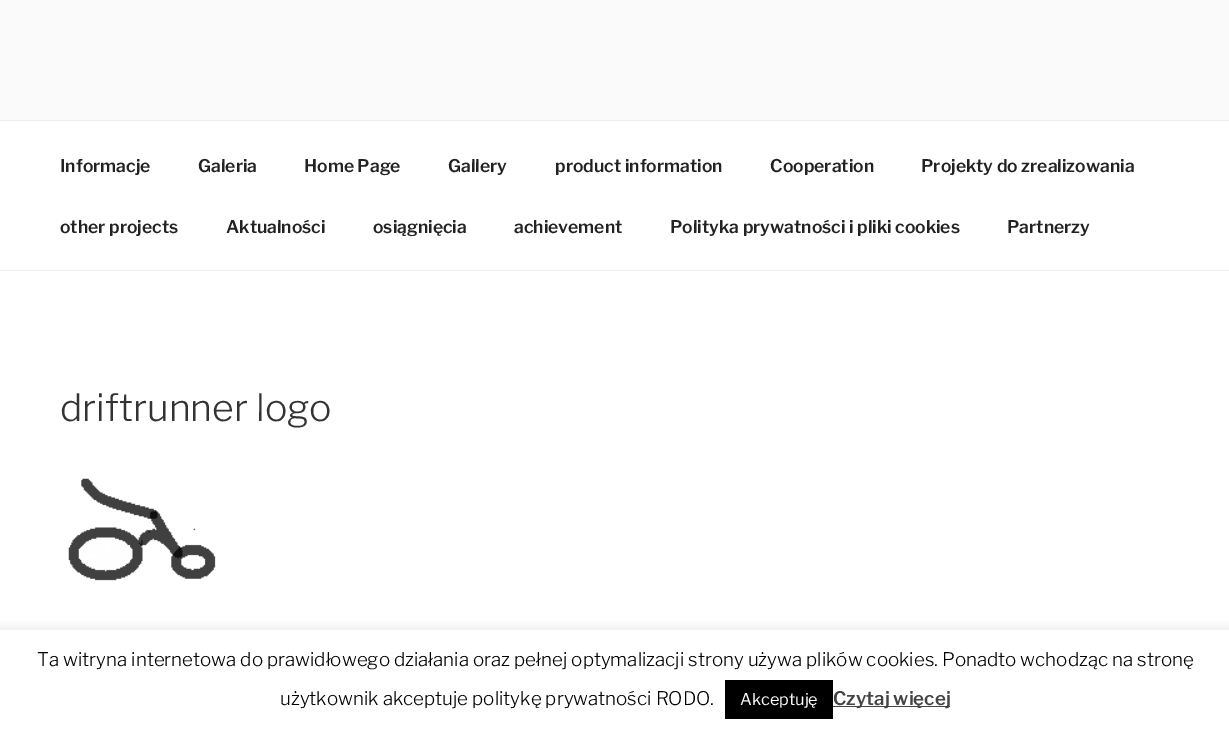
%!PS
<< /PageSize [1229 733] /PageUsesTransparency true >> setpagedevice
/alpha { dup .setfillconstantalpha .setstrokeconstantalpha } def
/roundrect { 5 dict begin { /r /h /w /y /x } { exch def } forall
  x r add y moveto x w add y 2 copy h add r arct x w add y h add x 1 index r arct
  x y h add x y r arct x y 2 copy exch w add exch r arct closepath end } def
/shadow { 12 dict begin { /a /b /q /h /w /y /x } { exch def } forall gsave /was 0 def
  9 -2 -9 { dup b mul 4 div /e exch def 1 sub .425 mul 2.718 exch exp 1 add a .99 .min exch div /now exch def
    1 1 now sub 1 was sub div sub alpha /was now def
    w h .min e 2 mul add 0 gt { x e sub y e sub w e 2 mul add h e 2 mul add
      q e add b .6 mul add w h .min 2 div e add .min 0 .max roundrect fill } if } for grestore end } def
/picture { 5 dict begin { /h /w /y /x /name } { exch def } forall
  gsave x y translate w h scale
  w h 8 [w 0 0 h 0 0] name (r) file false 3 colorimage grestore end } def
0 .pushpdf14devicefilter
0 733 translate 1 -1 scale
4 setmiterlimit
1 setgray
0 0 1229 733 rectfill
0.98 setgray
0 0 1229 120 rectfill
0.933 setgray
0 120 1229 1 rectfill
0 270 1229 1 rectfill
/LibreFranklin-SemiBold [17.5 0 0 -17.5 0 0] selectfont
0.133 setgray
60 172 moveto (Informacje) show
198 172 moveto (Galeria) show
304 172 moveto (Home Page) show
448 172 moveto (Gallery) show
555 172 moveto (product information) show
770 172 moveto (Cooperation) show
921 172 moveto (Projekty do zrealizowania) show
60 233 moveto (other projects) show
226 233 moveto (Aktualności) show
373 233 moveto (osiągnięcia) show
514 233 moveto (achievement) show
670 233 moveto (Polityka prywatności i pliki cookies) show
1007 233 moveto (Partnerzy) show
/LibreFranklin-Light [37.5 0 0 -37.5 0 0] selectfont
0.2 setgray
60 421 moveto (driftrunner logo) show
(img1.rgb) 68 478 148 103 picture
gsave
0 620 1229 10 rectclip
0.675 0.671 0.671 setrgbcolor
0 629 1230 104 0 6 0.3 shadow
grestore
/LibreFranklin-Light [18.75 0 0 -18.75 0 0] selectfont
0 setgray
37 666 moveto (Ta witryna internetowa do prawidłowego działania oraz pełnej optymalizacji strony używa plików cookies. Ponadto wchodząc na stronę) show
280 705 moveto (użytkownik akceptuje politykę prywatności RODO.) show
725 680 108 39 rectfill
/LibreFranklin-Regular [16.25 0 0 -16.25 0 0] selectfont
1 setgray
740 705 moveto (Akceptuję) show
0.267 setgray
833 706 117 1 rectfill
/LibreFranklin-SemiBold [18.75 0 0 -18.75 0 0] selectfont
833 705 moveto (Czytaj więcej) show
.poppdf14devicefilter showpage
